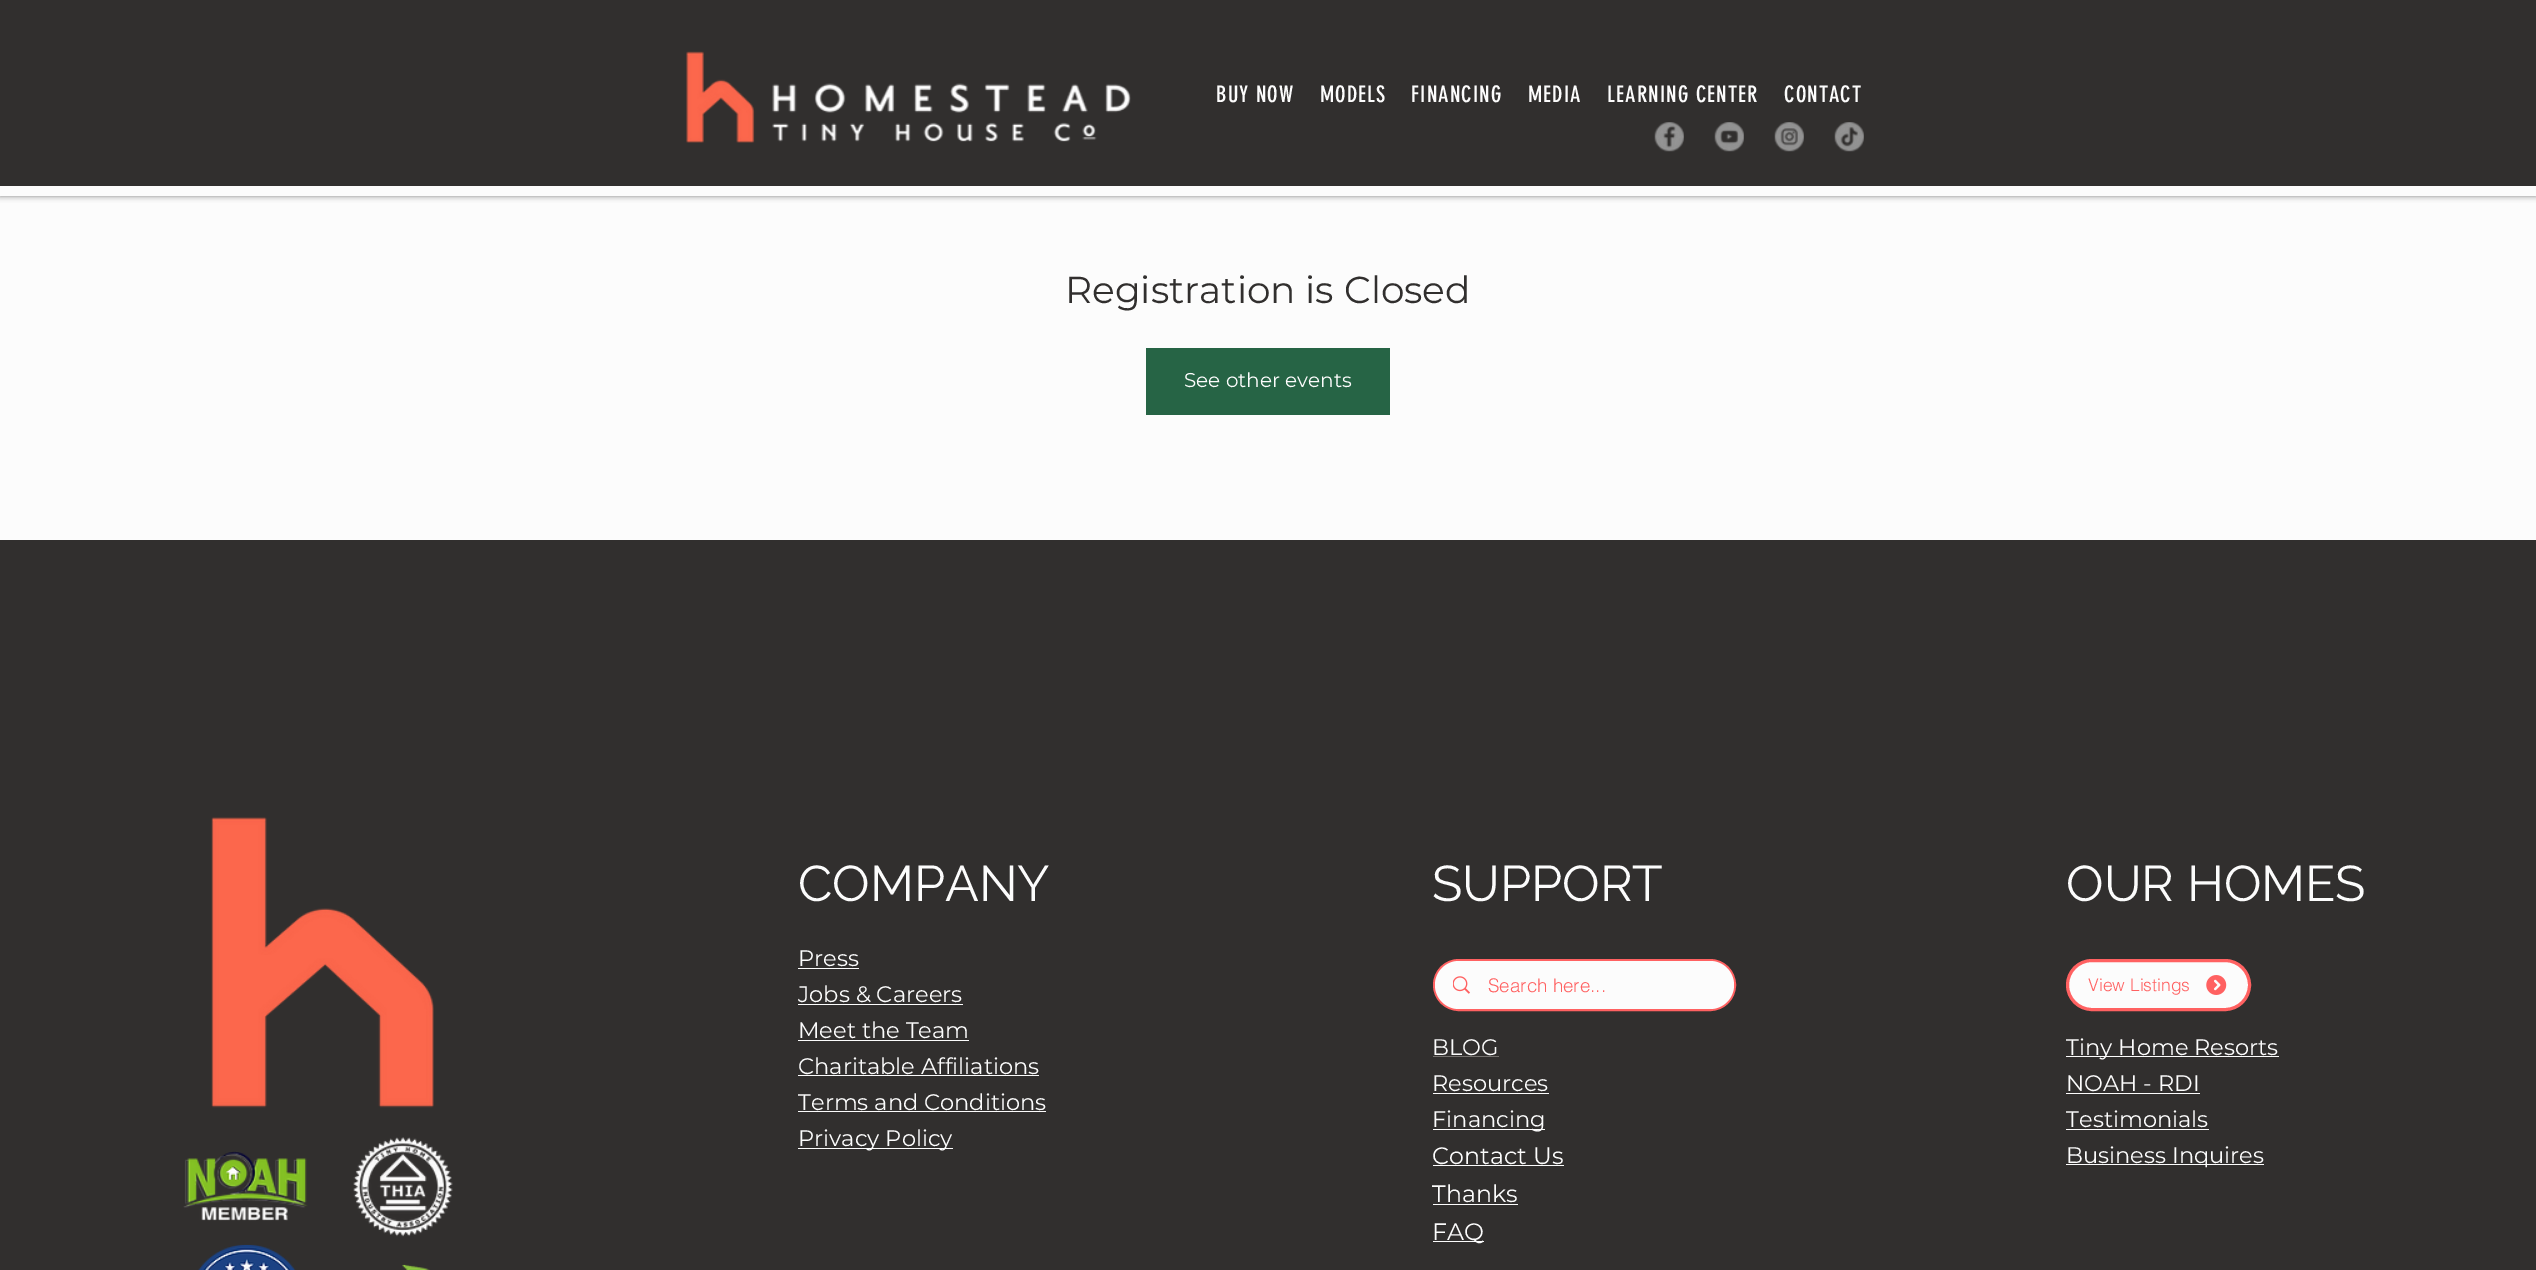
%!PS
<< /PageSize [2536 1270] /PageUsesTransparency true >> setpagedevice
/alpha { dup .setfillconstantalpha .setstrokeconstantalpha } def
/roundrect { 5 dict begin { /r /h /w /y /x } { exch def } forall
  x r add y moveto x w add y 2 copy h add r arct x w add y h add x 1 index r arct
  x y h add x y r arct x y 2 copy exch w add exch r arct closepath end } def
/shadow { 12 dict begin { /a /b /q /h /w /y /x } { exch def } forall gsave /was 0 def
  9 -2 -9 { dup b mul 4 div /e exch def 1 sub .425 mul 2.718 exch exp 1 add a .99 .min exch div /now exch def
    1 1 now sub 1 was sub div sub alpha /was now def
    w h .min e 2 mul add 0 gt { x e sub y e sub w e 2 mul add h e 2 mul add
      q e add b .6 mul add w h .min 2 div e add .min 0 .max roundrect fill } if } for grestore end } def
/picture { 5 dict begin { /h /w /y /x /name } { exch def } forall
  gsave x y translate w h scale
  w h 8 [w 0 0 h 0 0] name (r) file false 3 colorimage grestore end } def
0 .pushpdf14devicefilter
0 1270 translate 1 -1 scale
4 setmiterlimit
0.192 0.184 0.18 setrgbcolor
0 0 2536 1270 rectfill
0.988 setgray
0 196 2536 344 rectfill
0 setgray
0 0 2536 196 0 3 0.5 shadow
0.192 0.184 0.18 setrgbcolor
0 0 2536 186 rectfill
(img1.rgb) 686 51 445 92 picture
/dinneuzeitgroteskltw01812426-Regular [22.5 0 0 -22.5 0 0] selectfont
0.988 setgray
1216 102 moveto 1.1 0 (BUY NOW) ashow
1320 102 moveto 1.1 0 (MODELS) ashow
1411 102 moveto 1.1 0 (FINANCING) ashow
1528 102 moveto 1.1 0 (MEDIA) ashow
1607 102 moveto 1.1 0 (LEARNING CENTER) ashow
1784 102 moveto 1.1 0 (CONTACT) ashow
(img2.rgb) 1654 122 30 30 picture
(img3.rgb) 1714 122 30 30 picture
(img4.rgb) 1774 122 30 30 picture
(img5.rgb) 1834 122 30 30 picture
0 186 2536 10 rectfill
/Montserrat-Regular [37.5 0 0 -37.5 0 0] selectfont
0.192 0.184 0.18 setrgbcolor
1065 303 moveto (Registration is Closed) show
0.149 0.392 0.271 setrgbcolor
1146 348 244 67 rectfill
/Montserrat-Regular [20 0 0 -20 0 0] selectfont
0.988 setgray
1184 387 moveto (See other events) show
(img6.rgb) 211 817 223 291 picture
(img7.rgb) 183 1151 125 70 picture
(img8.rgb) 353 1137 100 100 picture
(img9.rgb) 198 1244 98 26 picture
(img10.rgb) 402 1264 28 6 picture
/Raleway-Regular [50 0 0 -50 0 0] selectfont
798 901 moveto (COMPANY) show
/Montserrat-Regular [22.5 0 0 -22.5 0 0] selectfont
798 966 moveto (Press) show
798 968 61 1 rectfill
798 1002 moveto (Jobs & Careers) show
798 1004 165 1 rectfill
798 1038 moveto (Meet the Team) show
798 1040 171 1 rectfill
798 1074 moveto (Charitable Affiliations) show
798 1075 241 1 rectfill
798 1110 moveto (Terms and Conditions) show
798 1111 248 1 rectfill
798 1148 155 1 rectfill
798 1146 moveto (Privacy Policy) show
/Raleway-Regular [50 0 0 -50 0 0] selectfont
1432 901 moveto (SUPPORT) show
1 0.38 0.38 setrgbcolor
3 setlinewidth
1434.5 960.5 300 49 24.5 roundrect stroke
0.988 setgray
1435 961 299 48 24 roundrect fill
(img11.rgb) 1453 976 17 18 picture
/helvetica-Light [18.75 0 0 -18.75 0 0] selectfont
1 0.38 0.38 setrgbcolor
1488 992 moveto (Search here...) show
/Montserrat-Regular [22.5 0 0 -22.5 0 0] selectfont
0.988 setgray
1432 1055 moveto (BLOG) show
0.459 0.447 0.435 setrgbcolor
1433 1056 66 1 rectfill
0.988 setgray
1432 1091 moveto (Resources) show
1433 1093 116 1 rectfill
1433 1129 112 1 rectfill
1432 1127 moveto (Financing) show
/Montserrat-Regular [23.75 0 0 -23.75 0 0] selectfont
1432 1164 moveto (Contact Us) show
1433 1165 131 1 rectfill
1432 1202 moveto (Thanks) show
1433 1204 85 1 rectfill
1433 1241 51 1 rectfill
1432 1240 moveto (FAQ) show
/Raleway-Regular [50 0 0 -50 0 0] selectfont
2066 901 moveto (OUR HOMES) show
2067.5 960.5 182 49 24.5 roundrect gsave fill grestore
1 0.38 0.38 setrgbcolor
stroke
/helvetica-Light [17.5 0 0 -17.5 0 0] selectfont
2088 991 moveto (View Listings) show
(img12.rgb) 2206 975 21 20 picture
0.988 setgray
2066 1056 213 1 rectfill
/Montserrat-Regular [22.5 0 0 -22.5 0 0] selectfont
2066 1055 moveto (Tiny Home Resorts) show
2066 1091 moveto (NOAH - RDI) show
2066 1093 134 1 rectfill
2066 1127 moveto (Testimonials) show
2066 1129 143 1 rectfill
2066 1164 198 1 rectfill
2066 1163 moveto (Business Inquires) show
.poppdf14devicefilter showpage
